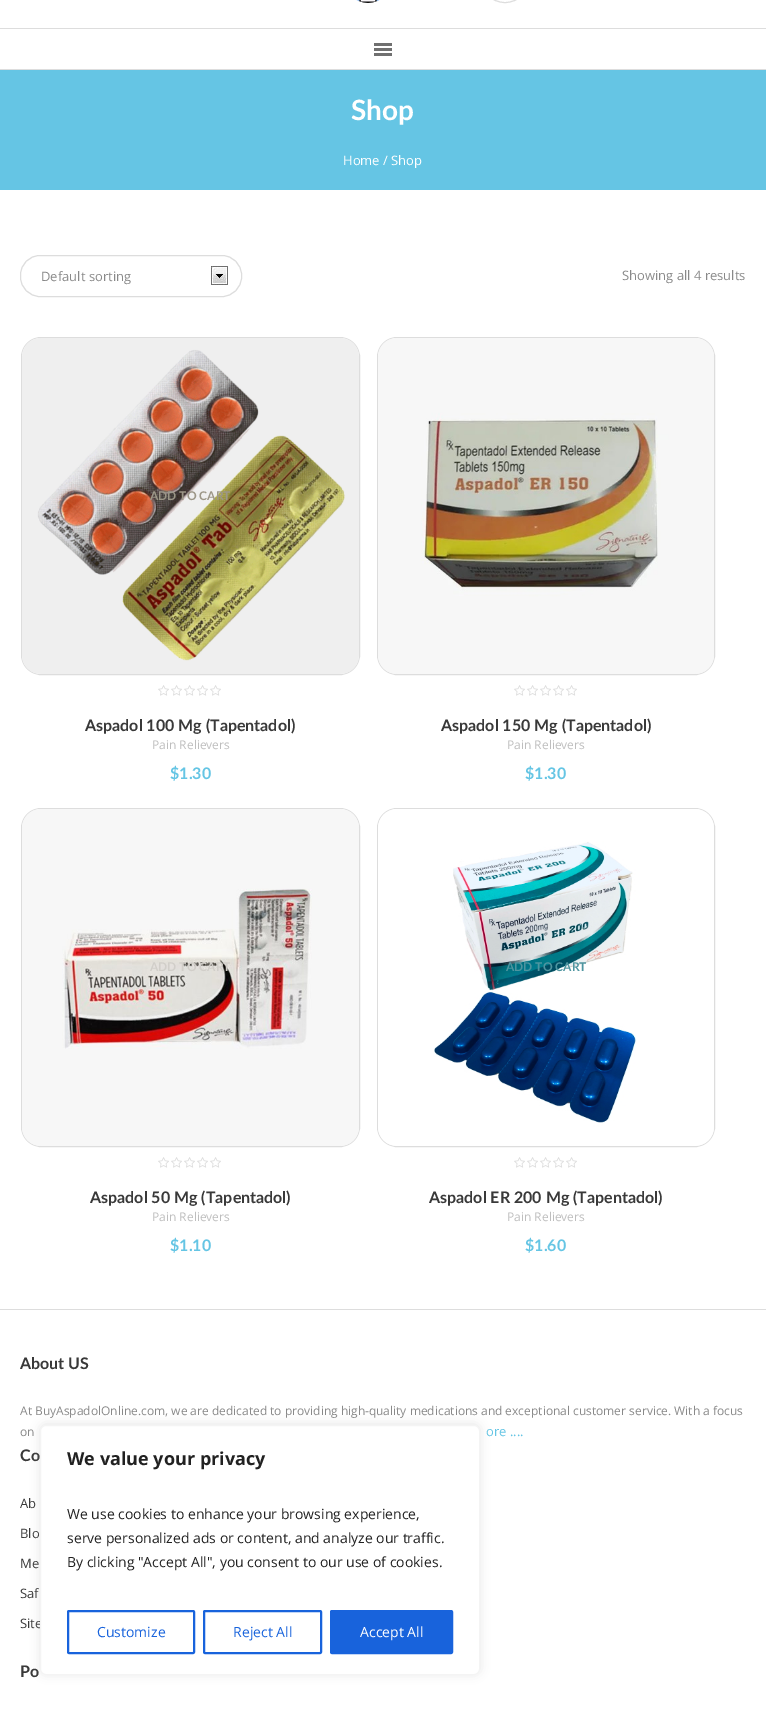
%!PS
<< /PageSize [766 1715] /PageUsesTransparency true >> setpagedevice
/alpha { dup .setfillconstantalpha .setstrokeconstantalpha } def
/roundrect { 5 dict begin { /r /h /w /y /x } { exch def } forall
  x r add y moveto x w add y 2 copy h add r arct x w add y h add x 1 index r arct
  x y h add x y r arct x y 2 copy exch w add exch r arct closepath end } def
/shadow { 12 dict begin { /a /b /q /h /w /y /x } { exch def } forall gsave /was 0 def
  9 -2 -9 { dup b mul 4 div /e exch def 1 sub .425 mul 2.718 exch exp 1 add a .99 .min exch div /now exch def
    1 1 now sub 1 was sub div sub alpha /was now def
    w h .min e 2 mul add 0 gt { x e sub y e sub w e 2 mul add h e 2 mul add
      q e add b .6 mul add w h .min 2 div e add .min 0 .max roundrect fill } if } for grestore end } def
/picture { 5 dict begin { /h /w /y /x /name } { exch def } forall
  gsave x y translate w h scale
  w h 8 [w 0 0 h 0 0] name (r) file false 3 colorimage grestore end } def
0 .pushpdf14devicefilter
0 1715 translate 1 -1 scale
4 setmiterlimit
1 setgray
0 0 766 1715 rectfill
(img1.rgb) 356 0 24 3 picture
0.867 setgray
480.5 -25.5 49 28 24.5 roundrect stroke
0 28 766 1 rectfill
0 69 766 1 rectfill
0.439 setgray
374 48 18 3 rectfill
374 43 18 3 rectfill
374 53 18 3 rectfill
0.396 0.773 0.894 setrgbcolor
0 70 766 120 rectfill
/Lato-Bold [28 0 0 -28 0 0] selectfont
1 setgray
351 120 moveto (Shop) show
/OpenSans-Regular [13 0 0 -13 0 0] selectfont
343 165 moveto (Home / Shop) show
(img2.rgb) 211 266 17 19 picture
0.867 setgray
20.5 255.5 221 41 19.5 roundrect stroke
0.537 setgray
41 281 moveto (Default sorting) show
622 280 moveto (Showing all 4 results) show
0.988 setgray
21.5 337.5 338 337 19.5 roundrect gsave fill grestore
0.867 setgray
stroke
(img3.rgb) 22 338 337 336 picture
/Lato-Bold [12 0 0 -12 0 0] selectfont
0.612 0.588 0.529 setrgbcolor
150 500 moveto (ADD TO CART) show
(img4.rgb) 158 685 11 11 picture
(img4.rgb) 171 685 11 11 picture
(img4.rgb) 184 685 11 11 picture
(img4.rgb) 197 685 11 11 picture
(img4.rgb) 210 685 11 11 picture
/Lato-Bold [16 0 0 -16 0 0] selectfont
0.224 setgray
85 731 moveto (Aspadol 100 Mg \(Tapentadol\)) show
/OpenSans-Regular [12 0 0 -12 0 0] selectfont
0.745 setgray
152 749 moveto (Pain Relievers) show
/Lato-Bold [16 0 0 -16 0 0] selectfont
0.396 0.773 0.894 setrgbcolor
170 779 moveto ($1.30) show
0.988 setgray
377.5 337.5 337 337 19.5 roundrect gsave fill grestore
0.867 setgray
stroke
(img5.rgb) 378 338 336 336 picture
(img4.rgb) 514 685 11 11 picture
(img4.rgb) 527 685 11 11 picture
(img4.rgb) 540 685 11 11 picture
(img4.rgb) 553 685 11 11 picture
(img4.rgb) 566 685 11 11 picture
0.224 setgray
441 731 moveto (Aspadol 150 Mg \(Tapentadol\)) show
/OpenSans-Regular [12 0 0 -12 0 0] selectfont
0.745 setgray
507 749 moveto (Pain Relievers) show
/Lato-Bold [16 0 0 -16 0 0] selectfont
0.396 0.773 0.894 setrgbcolor
525 779 moveto ($1.30) show
0.988 setgray
21.5 808.5 338 338 19.5 roundrect gsave fill grestore
0.867 setgray
stroke
(img6.rgb) 22 809 337 337 picture
/Lato-Bold [12 0 0 -12 0 0] selectfont
0.82 0.808 0.788 setrgbcolor
150 971 moveto (ADD TO CART) show
(img4.rgb) 158 1157 11 11 picture
(img4.rgb) 171 1157 11 11 picture
(img4.rgb) 184 1157 11 11 picture
(img4.rgb) 197 1157 11 11 picture
(img4.rgb) 210 1157 11 11 picture
/Lato-Bold [16 0 0 -16 0 0] selectfont
0.224 setgray
90 1203 moveto (Aspadol 50 Mg \(Tapentadol\)) show
/OpenSans-Regular [12 0 0 -12 0 0] selectfont
0.745 setgray
152 1221 moveto (Pain Relievers) show
/Lato-Bold [16 0 0 -16 0 0] selectfont
0.396 0.773 0.894 setrgbcolor
170 1251 moveto ($1.10) show
0.988 setgray
377.5 808.5 337 338 19.5 roundrect gsave fill grestore
0.867 setgray
stroke
(img7.rgb) 378 809 336 337 picture
/Lato-Bold [12 0 0 -12 0 0] selectfont
0.306 0.584 0.627 setrgbcolor
506 971 moveto (ADD TO CART) show
(img4.rgb) 514 1157 11 11 picture
(img4.rgb) 527 1157 11 11 picture
(img4.rgb) 540 1157 11 11 picture
(img4.rgb) 553 1157 11 11 picture
(img4.rgb) 566 1157 11 11 picture
/Lato-Bold [16 0 0 -16 0 0] selectfont
0.224 setgray
429 1203 moveto (Aspadol ER 200 Mg \(Tapentadol\)) show
/OpenSans-Regular [12 0 0 -12 0 0] selectfont
0.745 setgray
507 1221 moveto (Pain Relievers) show
/Lato-Bold [16 0 0 -16 0 0] selectfont
0.396 0.773 0.894 setrgbcolor
525 1251 moveto ($1.60) show
0.867 setgray
0 1309 766 1 rectfill
0.224 setgray
20 1369 moveto (About US) show
/OpenSans-Regular [12 0 0 -12 0 0] selectfont
0.537 setgray
20 1415 moveto (At BuyAspadolOnline.com, we are dedicated to providing high-quality medications and exceptional customer service. With a focus) show
20 1436 moveto (on) show
/OpenSans-Regular [13 0 0 -13 0 0] selectfont
0.396 0.773 0.894 setrgbcolor
486 1436 moveto (ore ....) show
/Lato-Bold [16 0 0 -16 0 0] selectfont
0.224 setgray
20 1461 moveto (Co) show
/OpenSans-Regular [13 0 0 -13 0 0] selectfont
20 1508 moveto (Ab) show
20 1538 moveto (Blo) show
20 1568 moveto (Me) show
20 1598 moveto (Saf) show
20 1628 moveto (Site) show
/Lato-Bold [16 0 0 -16 0 0] selectfont
20 1677 moveto (Po) show
0.675 0.671 0.671 setrgbcolor
40 1424 440 250 6 5 0.3 shadow
1 setgray
40.5 1425.5 439 249 5.5 roundrect gsave fill grestore
0.957 setgray
stroke
/OpenSans-Bold [18 0 0 -18 0 0] selectfont
0.129 setgray
67 1465 moveto (We value your privacy) show
/OpenSans-Regular [14 0 0 -14 0 0] selectfont
67 1519 moveto (We use cookies to enhance your browsing experience,) show
67 1543 moveto (serve personalized ads or content, and analyze our traffic.) show
67 1567 moveto (By clicking "Accept All", you consent to our use of cookies.) show
0.094 0.388 0.863 setrgbcolor
2 setlinewidth
68 1611 126 42 1 roundrect stroke
97 1637 moveto (Customize) show
204 1611 117 42 1 roundrect stroke
233 1637 moveto (Reject All) show
331 1611 121 42 1 roundrect gsave fill grestore
stroke
1 setgray
360 1637 moveto (Accept All) show
.poppdf14devicefilter showpage
